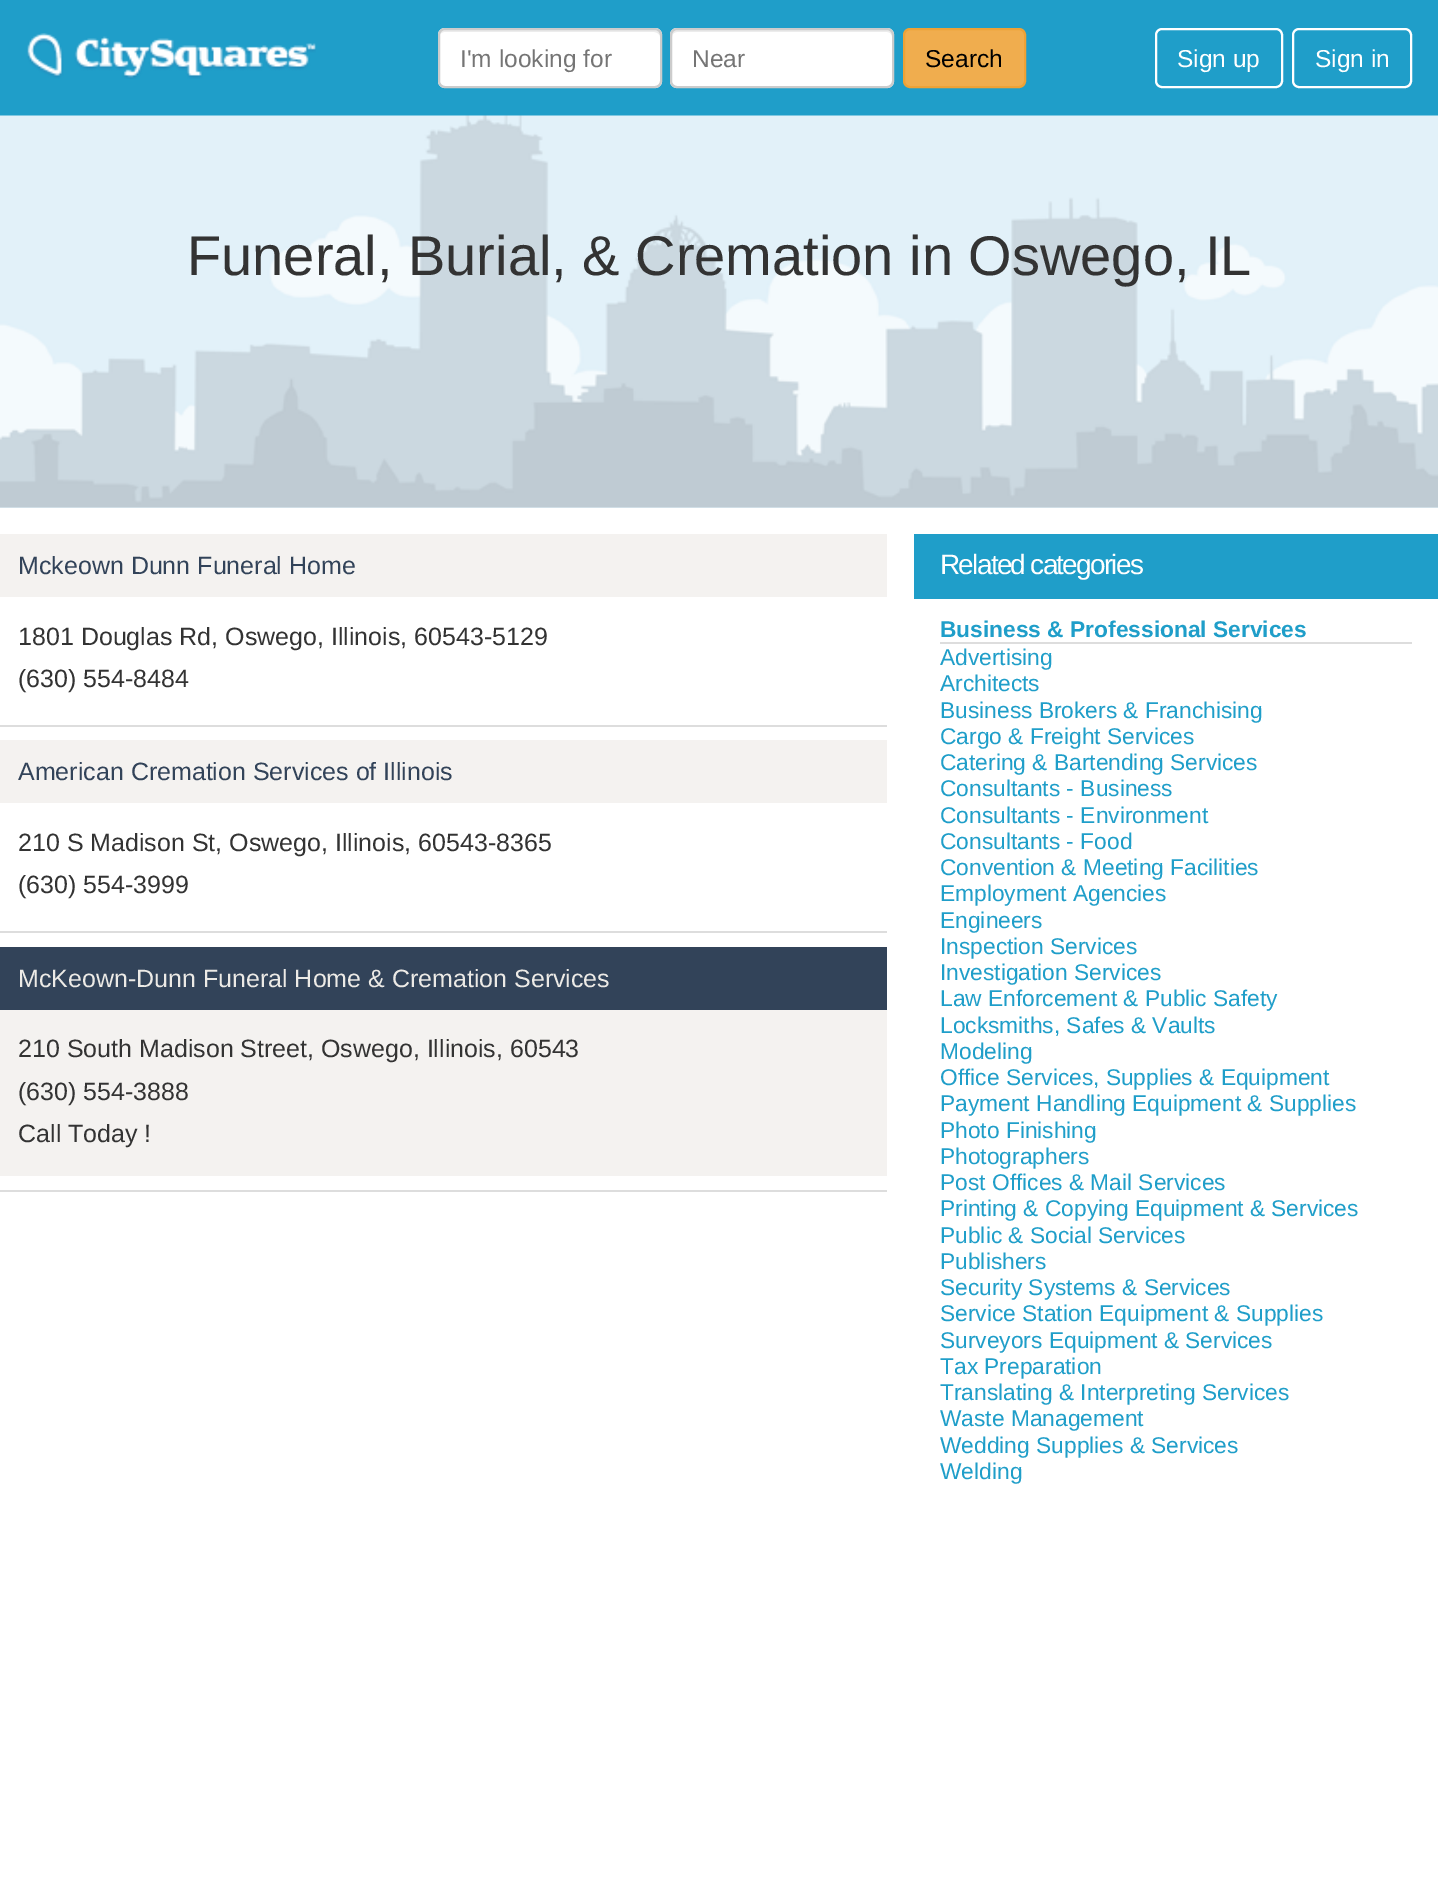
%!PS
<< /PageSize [1438 1883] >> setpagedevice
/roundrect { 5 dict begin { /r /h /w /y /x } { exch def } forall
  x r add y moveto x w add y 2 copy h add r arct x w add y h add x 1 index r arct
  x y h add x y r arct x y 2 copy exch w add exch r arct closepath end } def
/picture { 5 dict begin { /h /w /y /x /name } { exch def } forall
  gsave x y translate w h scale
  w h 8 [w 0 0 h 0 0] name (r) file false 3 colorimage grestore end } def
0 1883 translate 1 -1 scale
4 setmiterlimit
1 setgray
0 0 1438 1883 rectfill
0.122 0.62 0.788 setrgbcolor
0 0 1438 116 rectfill
(img1.rgb) 27 33 289 46 picture
1 setgray
438 28 224 60 7 roundrect fill
0.925 setgray
newpath 444 32 moveto 654 32 lineto 657 32 660 34 660 37 curveto 660 35 lineto 660 32 658 30 655 30 curveto 444 30 lineto 441 30 439 32 439 35 curveto 439 37 lineto 439 34 442 32 444 32 curveto closepath fill
0.8 setgray
2 setlinewidth
439 29 222 58 6 roundrect stroke
/LiberationSans-Regular [24.5 0 0 -24.5 0 0] selectfont
0.459 setgray
460 67 moveto (I'm looking for) show
1 setgray
670 28 224 60 7 roundrect fill
0.925 setgray
newpath 677 32 moveto 887 32 lineto 890 32 892 34 892 37 curveto 892 82 lineto 892 85 lineto 892 84 893 82 893 81 curveto 893 35 lineto 893 32 891 30 888 30 curveto 677 30 lineto 674 30 672 32 672 35 curveto 672 37 lineto 672 34 674 32 677 32 curveto closepath fill
0.8 setgray
671 29 222 58 6 roundrect stroke
0.459 setgray
692 67 moveto (Near) show
0.941 0.678 0.306 setrgbcolor
904 29 121 58 6 roundrect gsave fill grestore
0.933 0.635 0.212 setrgbcolor
stroke
0 setgray
925 67 moveto (Search) show
1 setgray
1156 29 126 58 6 roundrect stroke
1177 67 moveto (Sign up) show
1293 29 118 58 6 roundrect stroke
1315 67 moveto (Sign in) show
0.886 0.945 0.976 setrgbcolor
0 507 1438 1 rectfill
(img2.rgb) 0 115 1438 393 picture
/LiberationSans-Regular [56 0 0 -56 0 0] selectfont
0.2 setgray
187 275 moveto (Funeral, Burial, & Cremation in Oswego, IL) show
0.957 0.949 0.941 setrgbcolor
0 534 887 63 rectfill
/LiberationSans-Regular [25 0 0 -25 0 0] selectfont
0.196 0.263 0.349 setrgbcolor
18 574 moveto (Mckeown Dunn Funeral Home) show
0.2 setgray
18 645 moveto (1801 Douglas Rd, Oswego, Illinois, 60543-5129) show
18 687 moveto (\(630\) 554-8484) show
0.867 setgray
0 725 887 2 rectfill
0.957 0.949 0.941 setrgbcolor
0 740 887 63 rectfill
0.196 0.263 0.349 setrgbcolor
18 780 moveto (American Cremation Services of Illinois) show
0.2 setgray
18 851 moveto (210 S Madison St, Oswego, Illinois, 60543-8365) show
18 893 moveto (\(630\) 554-3999) show
0.867 setgray
0 931 887 2 rectfill
0.957 0.949 0.941 setrgbcolor
0 1010 887 166 rectfill
0.196 0.263 0.349 setrgbcolor
0 947 887 63 rectfill
0.925 0.918 0.902 setrgbcolor
18 987 moveto (McKeown-Dunn Funeral Home & Cremation Services) show
0.2 setgray
18 1057 moveto (210 South Madison Street, Oswego, Illinois, 60543) show
18 1100 moveto (\(630\) 554-3888) show
18 1142 moveto (Call Today !) show
0.867 setgray
0 1190 887 2 rectfill
0.122 0.62 0.788 setrgbcolor
914 534 524 65 rectfill
/LiberationSans-Regular [28 0 0 -28 0 0] selectfont
1 setgray
940 574 moveto -1.75 0 (Related categories) ashow
/LiberationSans-Bold [22.75 0 0 -22.75 0 0] selectfont
0.122 0.62 0.788 setrgbcolor
940 637 moveto (Business & Professional Services) show
0.867 setgray
940 642 472 2 rectfill
/LiberationSans-Regular [22.75 0 0 -22.75 0 0] selectfont
0.122 0.62 0.788 setrgbcolor
940 665 moveto (Advertising) show
940 691 moveto (Architects) show
940 718 moveto (Business Brokers & Franchising) show
940 744 moveto (Cargo & Freight Services) show
940 770 moveto (Catering & Bartending Services) show
940 796 moveto (Consultants - Business) show
940 823 moveto (Consultants - Environment) show
940 849 moveto (Consultants - Food) show
940 875 moveto (Convention & Meeting Facilities) show
940 901 moveto (Employment Agencies) show
940 928 moveto (Engineers) show
940 954 moveto (Inspection Services) show
940 980 moveto (Investigation Services) show
940 1006 moveto (Law Enforcement & Public Safety) show
940 1033 moveto (Locksmiths, Safes & Vaults) show
940 1059 moveto (Modeling) show
940 1085 moveto (Office Services, Supplies & Equipment) show
940 1111 moveto (Payment Handling Equipment & Supplies) show
940 1138 moveto (Photo Finishing) show
940 1164 moveto (Photographers) show
940 1190 moveto (Post Offices & Mail Services) show
940 1216 moveto (Printing & Copying Equipment & Services) show
940 1243 moveto (Public & Social Services) show
940 1269 moveto (Publishers) show
940 1295 moveto (Security Systems & Services) show
940 1321 moveto (Service Station Equipment & Supplies) show
940 1348 moveto (Surveyors Equipment & Services) show
940 1374 moveto (Tax Preparation) show
940 1400 moveto (Translating & Interpreting Services) show
940 1426 moveto (Waste Management) show
940 1453 moveto (Wedding Supplies & Services) show
940 1479 moveto (Welding) show
showpage
